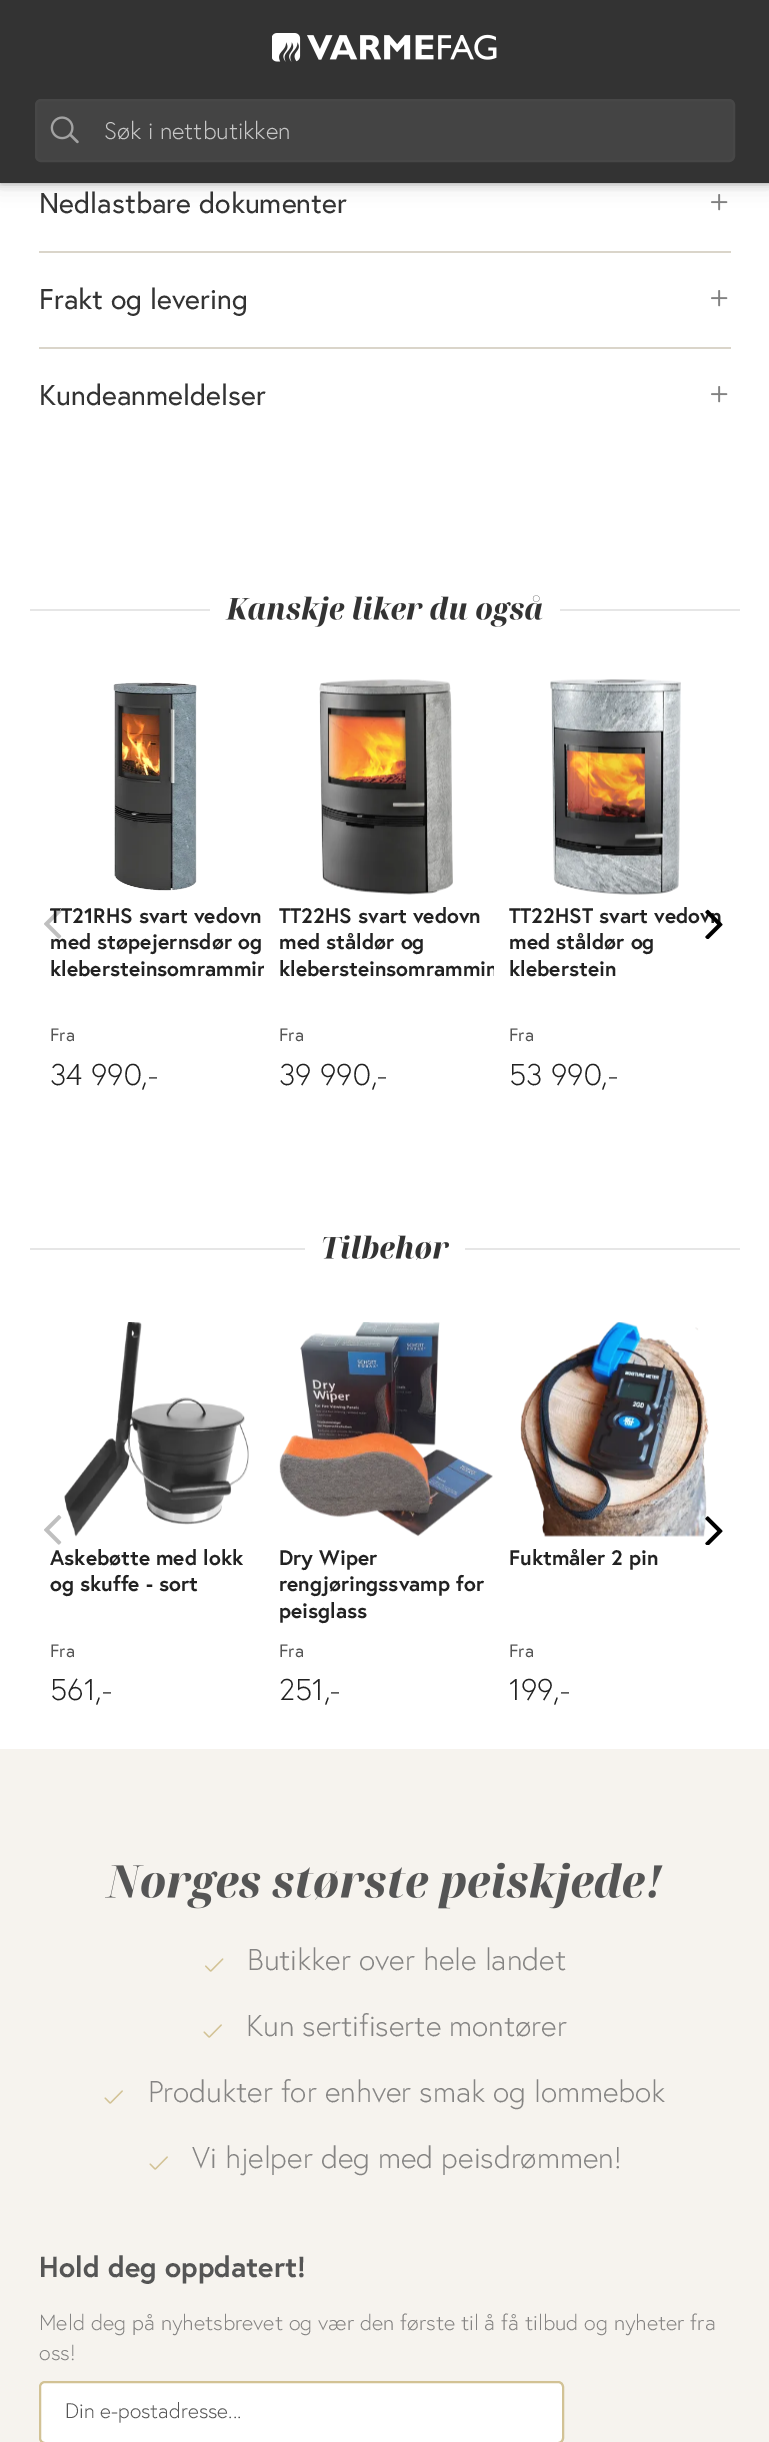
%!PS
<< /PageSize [769 2442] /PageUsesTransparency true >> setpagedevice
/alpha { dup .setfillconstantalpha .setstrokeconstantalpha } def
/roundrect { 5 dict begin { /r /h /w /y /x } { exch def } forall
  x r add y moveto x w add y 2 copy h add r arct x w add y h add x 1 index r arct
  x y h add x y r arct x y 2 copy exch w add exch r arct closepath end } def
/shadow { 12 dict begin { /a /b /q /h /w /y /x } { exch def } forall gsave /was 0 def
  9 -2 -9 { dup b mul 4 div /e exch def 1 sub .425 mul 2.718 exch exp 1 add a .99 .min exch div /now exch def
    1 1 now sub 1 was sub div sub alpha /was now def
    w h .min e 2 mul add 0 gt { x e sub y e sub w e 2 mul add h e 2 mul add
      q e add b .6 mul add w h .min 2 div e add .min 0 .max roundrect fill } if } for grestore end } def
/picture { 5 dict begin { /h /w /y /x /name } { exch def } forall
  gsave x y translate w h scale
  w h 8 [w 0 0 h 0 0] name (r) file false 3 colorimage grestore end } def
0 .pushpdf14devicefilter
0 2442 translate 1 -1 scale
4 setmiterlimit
1 setgray
0 0 769 2442 rectfill
(img3.rgb) 711 194 17 17 picture
0 setgray
0 0 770 183 0 11 0.15 shadow
0 0 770 183 0 4 0.3 shadow
0.2 setgray
0 0 769 183 rectfill
(img1.rgb) 272 33 225 29 picture
0.267 setgray
36 100 698 61 5 roundrect gsave fill grestore
0.278 setgray
2 setlinewidth
stroke
(img2.rgb) 50 116 29 28 picture
/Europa-Light [24 0 0 -24 0 0] selectfont
0.78 setgray
104 139 moveto (Søk i nettbutikken) show
0.855 0.835 0.792 setrgbcolor
39 251 692 2 rectfill
/Europa-Regular [28.5 0 0 -28.5 0 0] selectfont
0.2 setgray
39 213 moveto (Nedlastbare dokumenter) show
0.855 0.835 0.792 setrgbcolor
39 347 692 2 rectfill
0.2 setgray
39 309 moveto (Frakt og levering) show
(img3.rgb) 711 290 17 17 picture
39 405 moveto (Kundeanmeldelser) show
(img3.rgb) 711 386 17 17 picture
0.902 setgray
30 609 180 2 rectfill
(img4.rgb) 225 595 318 32 picture
560 609 180 2 rectfill
(img5.rgb) 113 682 84 209 picture
gsave
50 902 214 106 rectclip
/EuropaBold-Bold [21 0 0 -21 0 0] selectfont
0.133 setgray
50 923 moveto (TT21RHS svart vedovn) show
grestore
/EuropaBold-Bold [21 0 0 -21 0 0] selectfont
0.133 setgray
50 949 moveto (med støpejernsdør og) show
gsave
50 902 214 106 rectclip
50 976 moveto (klebersteinsomrammin) show
grestore
/Europa-Regular [18 0 0 -18 0 0] selectfont
0.333 setgray
50 1041 moveto (Fra) show
/Europa-Light [30 0 0 -30 0 0] selectfont
0.133 setgray
50 1085 moveto (34 990,-) show
(img6.rgb) 319 679 134 216 picture
/EuropaBold-Bold [21 0 0 -21 0 0] selectfont
279 923 moveto (TT22HS svart vedovn) show
279 949 moveto (med ståldør og) show
gsave
279 902 215 106 rectclip
279 976 moveto (klebersteinsomrammin) show
grestore
/Europa-Regular [18 0 0 -18 0 0] selectfont
0.333 setgray
279 1041 moveto (Fra) show
/Europa-Light [30 0 0 -30 0 0] selectfont
0.133 setgray
279 1085 moveto (39 990,-) show
(img7.rgb) 550 679 131 216 picture
gsave
509 902 214 106 rectclip
/EuropaBold-Bold [21 0 0 -21 0 0] selectfont
509 923 moveto (TT22HST svart vedovn) show
grestore
/EuropaBold-Bold [21 0 0 -21 0 0] selectfont
509 949 moveto (med ståldør og) show
509 976 moveto (kleberstein) show
/Europa-Regular [18 0 0 -18 0 0] selectfont
0.333 setgray
509 1041 moveto (Fra) show
/Europa-Light [30 0 0 -30 0 0] selectfont
0.133 setgray
509 1085 moveto (53 990,-) show
(img8.rgb) 44 909 18 30 picture
(img9.rgb) 705 909 18 30 picture
0.902 setgray
30 1248 275 2 rectfill
(img10.rgb) 322 1235 127 25 picture
465 1248 275 2 rectfill
(img11.rgb) 44 1515 18 30 picture
(img15.rgb) 520 1322 189 215 picture
(img12.rgb) 705 1516 18 29 picture
(img13.rgb) 64 1322 185 215 picture
/EuropaBold-Bold [21 0 0 -21 0 0] selectfont
0.133 setgray
50 1565 moveto (Askebøtte med lokk) show
50 1591 moveto (og skuffe - sort) show
/Europa-Regular [18 0 0 -18 0 0] selectfont
0.333 setgray
50 1657 moveto (Fra) show
/Europa-Light [30 0 0 -30 0 0] selectfont
0.133 setgray
50 1700 moveto (561,-) show
(img14.rgb) 279 1322 214 215 picture
/EuropaBold-Bold [21 0 0 -21 0 0] selectfont
279 1565 moveto (Dry Wiper) show
279 1591 moveto (rengjøringssvamp for) show
279 1618 moveto (peisglass) show
/Europa-Regular [18 0 0 -18 0 0] selectfont
0.333 setgray
279 1657 moveto (Fra) show
/Europa-Light [30 0 0 -30 0 0] selectfont
0.133 setgray
279 1700 moveto (251,-) show
/EuropaBold-Bold [21 0 0 -21 0 0] selectfont
509 1565 moveto (Fuktmåler 2 pin) show
/Europa-Regular [18 0 0 -18 0 0] selectfont
0.333 setgray
509 1657 moveto (Fra) show
/Europa-Light [30 0 0 -30 0 0] selectfont
0.133 setgray
509 1700 moveto (199,-) show
0.965 0.953 0.933 setrgbcolor
0 1749 769 693 rectfill
(img16.rgb) 105 1862 558 47 picture
(img17.rgb) 205 1958 19 14 picture
0.522 0.518 0.514 setrgbcolor
247 1970 moveto (Butikker over hele landet) show
(img18.rgb) 203 2024 19 14 picture
246 2036 moveto (Kun sertifiserte montører) show
(img18.rgb) 104 2090 19 14 picture
148 2102 moveto (Produkter for enhver smak og lommebok) show
(img18.rgb) 149 2156 19 14 picture
192 2168 moveto (Vi hjelper deg med peisdrømmen!) show
/EuropaBold-Bold [28.75 0 0 -28.75 0 0] selectfont
0.333 setgray
39 2277 moveto (Hold deg oppdatert!) show
/Europa-Light [21.6 0 0 -21.6 0 0] selectfont
0.522 0.518 0.514 setrgbcolor
39 2330 moveto (Meld deg på nyhetsbrevet og vær den første til å få tilbud og nyheter fra) show
39 2360 moveto (oss!) show
1 setgray
40 2382 523 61 5 roundrect gsave fill grestore
0.824 0.761 0.584 setrgbcolor
stroke
/Europa-Light [21 0 0 -21 0 0] selectfont
0.333 setgray
65 2418 moveto (Din e-postadresse...) show
.poppdf14devicefilter showpage
